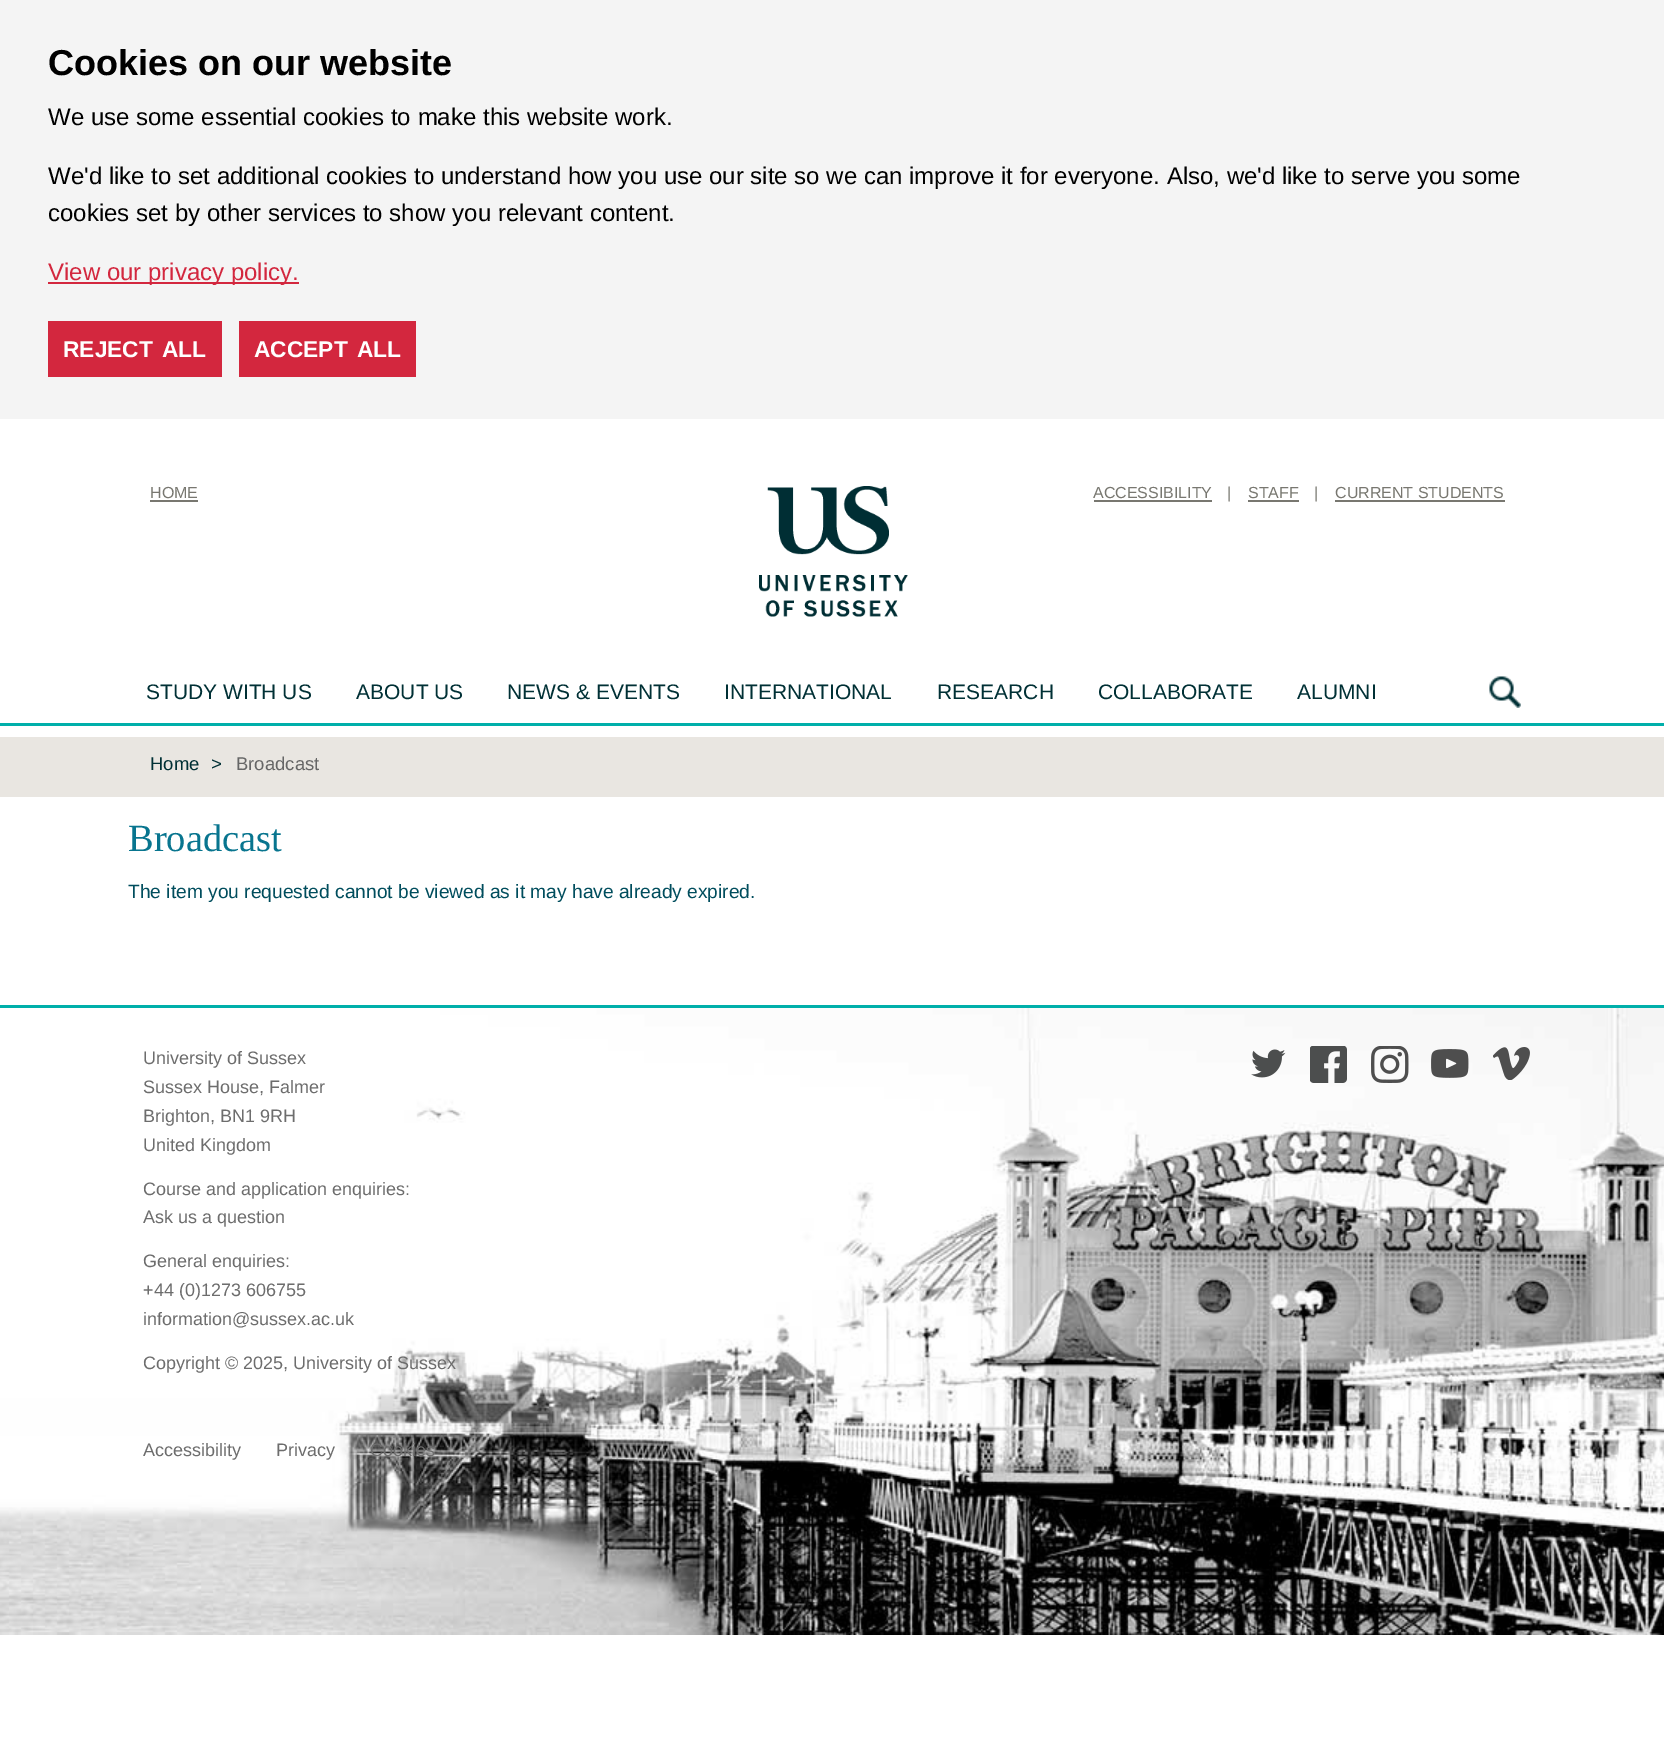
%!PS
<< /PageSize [1664 1748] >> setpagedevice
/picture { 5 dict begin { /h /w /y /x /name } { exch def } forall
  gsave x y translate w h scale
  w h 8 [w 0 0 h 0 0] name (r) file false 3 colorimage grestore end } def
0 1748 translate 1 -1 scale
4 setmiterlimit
1 setgray
0 0 1664 1748 rectfill
0.957 setgray
0 0 1664 419 rectfill
/LiberationSans-Bold [36 0 0 -36 0 0] selectfont
0 setgray
48 75 moveto (Cookies on our website) show
/LiberationSans-Regular [24 0 0 -24 0 0] selectfont
48 125 moveto (We use some essential cookies to make this website work.) show
48 184 moveto (We'd like to set additional cookies to understand how you use our site so we can improve it for everyone. Also, we'd like to serve you some) show
48 221 moveto (cookies set by other services to show you relevant content.) show
0.827 0.153 0.243 setrgbcolor
48 282 251 2 rectfill
48 280 moveto (View our privacy policy.) show
48 321 174 56 rectfill
/LiberationSans-Bold [22.75 0 0 -22.75 0 0] selectfont
1 setgray
63 357 moveto 3 0 32 (REJECT ALL) widthshow
0.827 0.153 0.243 setrgbcolor
239 321 177 56 rectfill
1 setgray
254 357 moveto 3 0 32 (ACCEPT ALL) widthshow
0 0.686 0.667 setrgbcolor
0 723 1664 3 rectfill
/LiberationSans-Regular [16 0 0 -16 0 0] selectfont
0.471 0.467 0.439 setrgbcolor
150 498 moveto (HOME) show
150 500 48 2 rectfill
(img1.rgb) 759 486 149 131 picture
1093 498 moveto (ACCESSIBILITY) show
1094 500 118 2 rectfill
1227 498 moveto (|) show
1248 498 moveto (STAFF) show
1248 500 51 2 rectfill
1314 498 moveto (|) show
1335 498 moveto (CURRENT STUDENTS) show
1335 500 170 2 rectfill
/LiberationSans-Regular [21 0 0 -21 0 0] selectfont
0 0.188 0.208 setrgbcolor
146 699 moveto (STUDY WITH US) show
356 699 moveto (ABOUT US) show
507 699 moveto (NEWS & EVENTS) show
724 699 moveto (INTERNATIONAL) show
937 699 moveto (RESEARCH) show
1098 699 moveto (COLLABORATE) show
1297 699 moveto (ALUMNI) show
(img2.rgb) 1489 676 32 32 picture
0.914 0.902 0.882 setrgbcolor
0 737 1664 60 rectfill
/LiberationSans-Regular [18.5 0 0 -18.5 0 0] selectfont
0 0.188 0.208 setrgbcolor
150 770 moveto (Home) show
211 770 moveto (>) show
0.4 setgray
236 770 moveto (Broadcast) show
/LiberationSerif-Regular [38.5 0 0 -38.5 0 0] selectfont
0.031 0.459 0.561 setrgbcolor
128 851 moveto (Broadcast) show
/LiberationSans-Regular [19.2 0 0 -19.2 0 0] selectfont
0 0.302 0.365 setrgbcolor
128 898 moveto (The item you requested cannot be viewed as it may have already expired.) show
(img3.rgb) 0 1008 1664 627 picture
0 0.686 0.667 setrgbcolor
0 1005 1664 3 rectfill
/LiberationSans-Regular [18 0 0 -18 0 0] selectfont
0.427 setgray
143 1064 moveto (University of Sussex) show
143 1093 moveto (Sussex House, Falmer) show
143 1122 moveto (Brighton, BN1 9RH) show
143 1151 moveto (United Kingdom) show
143 1195 moveto (Course and application enquiries:) show
143 1223 moveto (Ask us a question) show
143 1267 moveto (General enquiries:) show
143 1296 moveto (+44 \(0\)1273 606755) show
143 1325 moveto (information@sussex.ac.uk) show
143 1369 moveto (Copyright © 2025, University of Sussex) show
143 1456 moveto (Accessibility) show
276 1456 moveto (Privacy) show
370 1456 moveto (Cookies) show
(img4.rgb) 1251 1049 35 29 picture
(img5.rgb) 1310 1046 37 37 picture
(img6.rgb) 1371 1046 38 37 picture
(img7.rgb) 1431 1049 38 29 picture
(img8.rgb) 1493 1047 37 33 picture
showpage
